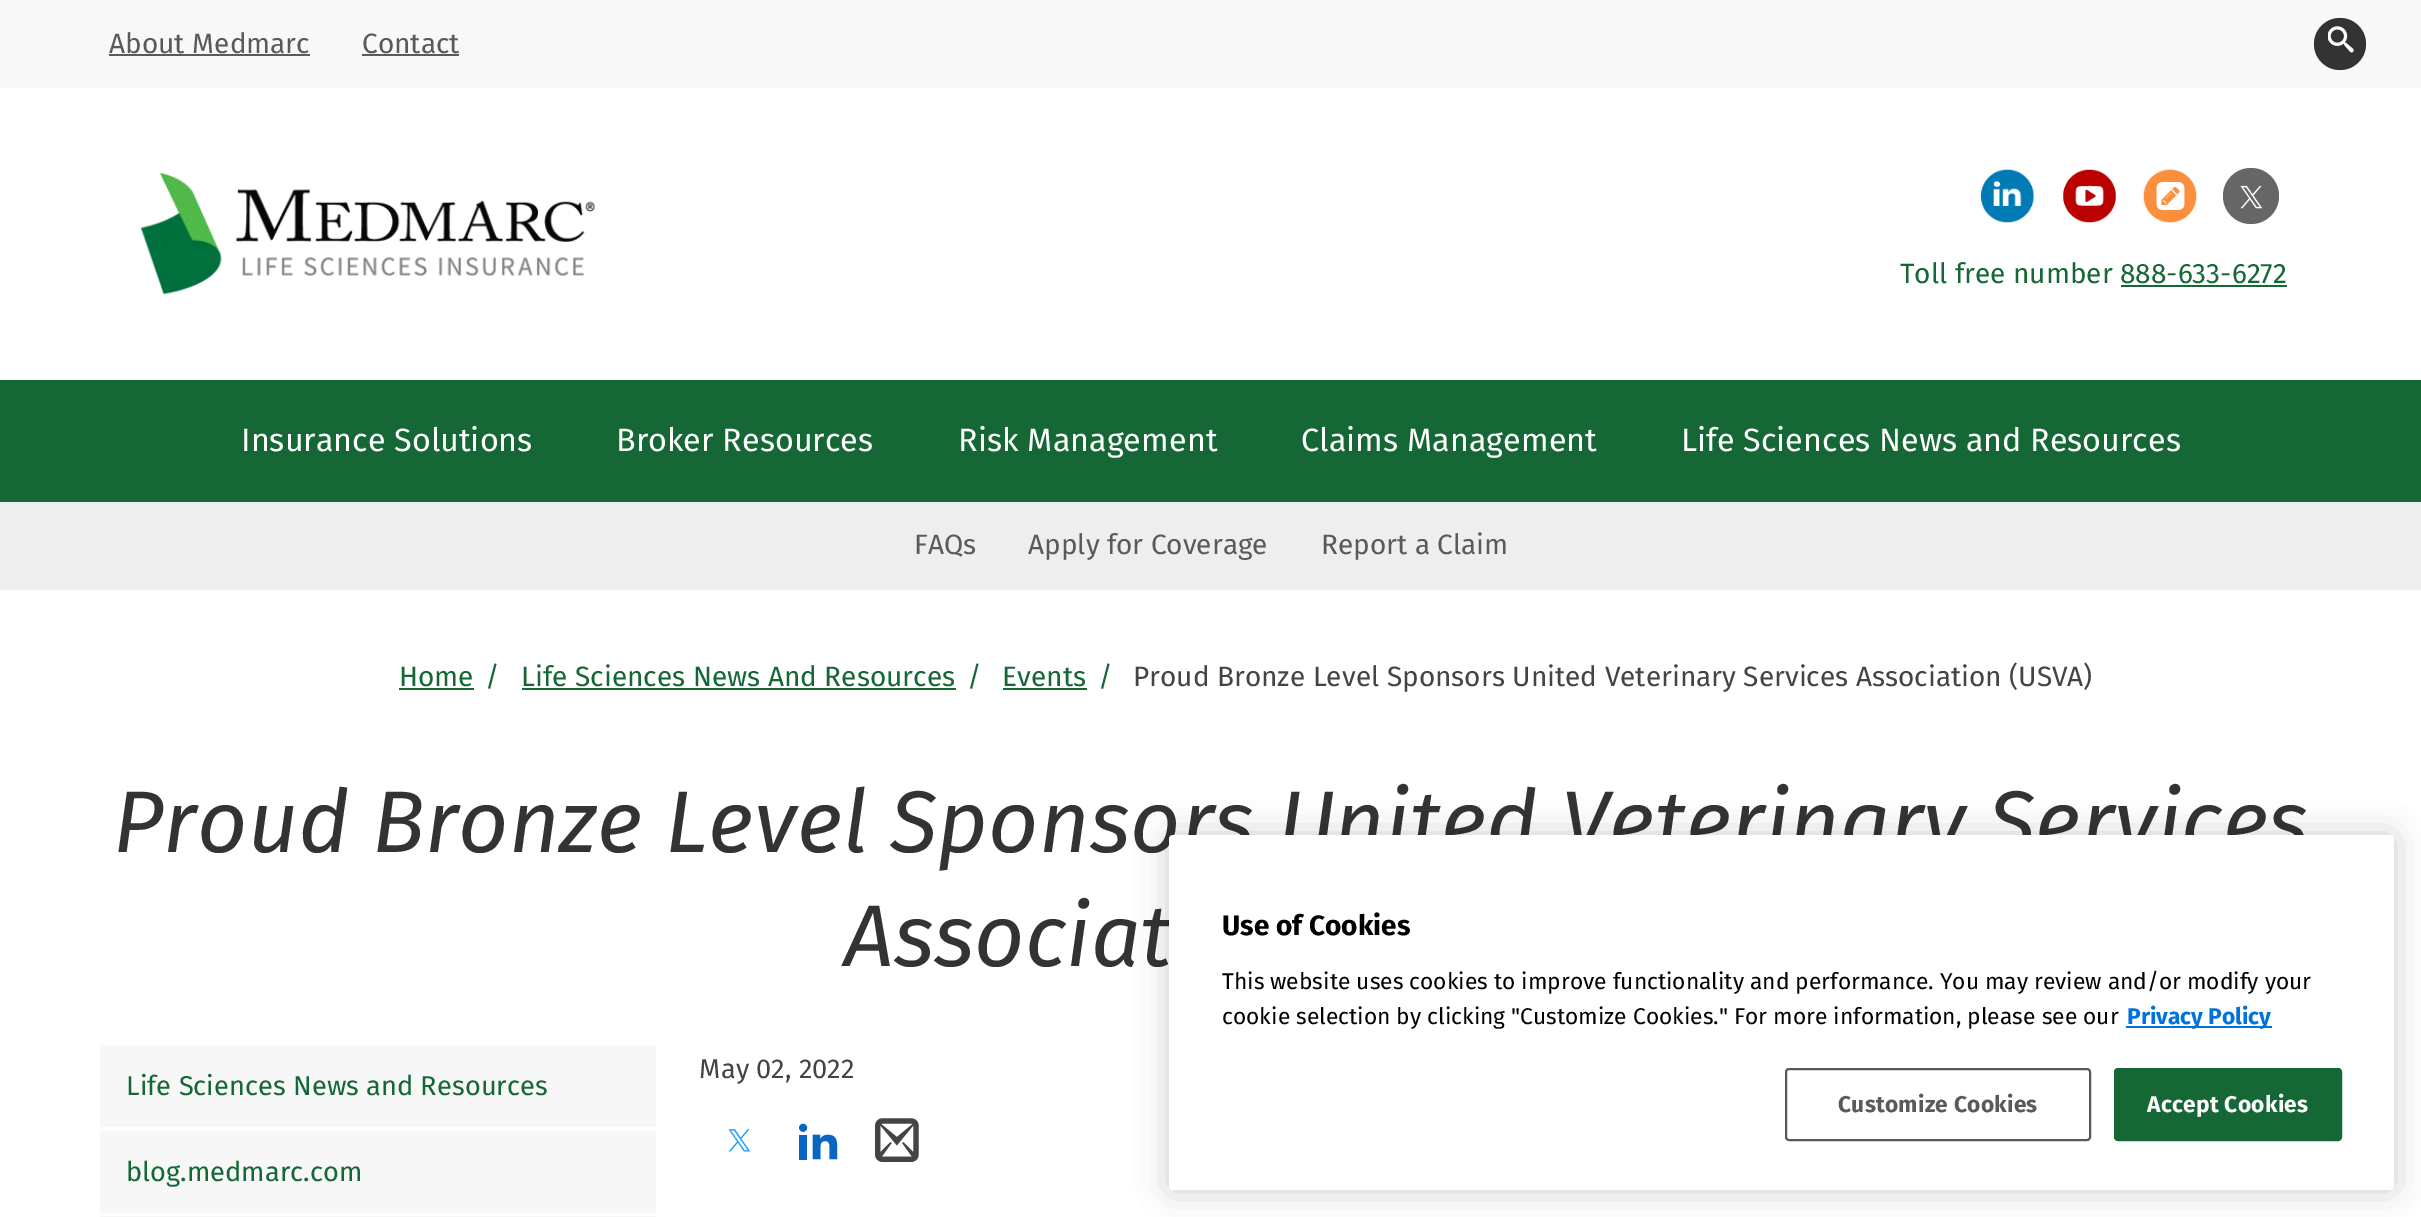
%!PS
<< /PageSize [2421 1217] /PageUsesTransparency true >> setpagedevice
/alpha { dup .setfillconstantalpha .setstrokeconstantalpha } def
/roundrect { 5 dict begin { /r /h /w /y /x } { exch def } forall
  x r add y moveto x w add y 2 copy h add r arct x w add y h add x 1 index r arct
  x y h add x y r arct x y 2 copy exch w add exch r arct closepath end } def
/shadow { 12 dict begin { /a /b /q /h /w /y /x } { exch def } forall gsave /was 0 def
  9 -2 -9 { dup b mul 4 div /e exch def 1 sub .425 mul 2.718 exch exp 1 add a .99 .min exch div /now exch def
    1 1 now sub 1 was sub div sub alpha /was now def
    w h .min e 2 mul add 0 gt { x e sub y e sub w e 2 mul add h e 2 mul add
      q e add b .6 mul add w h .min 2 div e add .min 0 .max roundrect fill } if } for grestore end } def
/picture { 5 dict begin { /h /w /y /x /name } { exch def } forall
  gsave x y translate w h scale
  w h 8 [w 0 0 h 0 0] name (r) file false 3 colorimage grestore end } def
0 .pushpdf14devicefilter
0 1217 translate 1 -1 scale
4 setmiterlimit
1 setgray
0 0 2421 1217 rectfill
0.973 setgray
0 0 2421 88 rectfill
/FiraSans-Regular [28 0 0 -28 0 0] selectfont
0.353 setgray
109 53 moveto (About Medmarc) show
109 54 201 2 rectfill
362 53 moveto (Contact) show
362 54 97 2 rectfill
0.2 setgray
newpath 2340 44 26 0 360 arc closepath fill
(img1.rgb) 2328 26 26 27 picture
(img2.rgb) 140 172 455 123 picture
(img3.rgb) 1981 169 53 54 picture
(img4.rgb) 2063 169 53 54 picture
(img5.rgb) 2143 169 54 54 picture
0.4 setgray
newpath 2251 196 28 0 360 arc closepath fill
(img6.rgb) 2240 185 23 24 picture
0.082 0.404 0.212 setrgbcolor
1900 283 moveto (Toll free number 888-633-6272) show
2121 285 166 2 rectfill
0 380 2421 122 rectfill
/FiraSans-Regular [32.3 0 0 -32.3 0 0] selectfont
1 setgray
241 451 moveto (Insurance Solutions) show
616 451 moveto (Broker Resources) show
958 451 moveto (Risk Management) show
1301 451 moveto (Claims Management) show
1681 451 moveto (Life Sciences News and Resources) show
0.933 setgray
0 502 2421 88 rectfill
/FiraSans-Regular [28 0 0 -28 0 0] selectfont
0.353 setgray
914 554 moveto (FAQs) show
1028 554 moveto (Apply for Coverage) show
1321 554 moveto (Report a Claim) show
0.082 0.404 0.212 setrgbcolor
399 686 moveto (Home) show
399 688 75 2 rectfill
485 686 moveto (/) show
521 686 moveto (Life Sciences News And Resources) show
522 688 434 2 rectfill
967 686 moveto (/) show
1002 686 moveto (Events) show
1003 688 84 2 rectfill
1098 686 moveto (/) show
0.267 setgray
1133 686 moveto (Proud Bronze Level Sponsors United Veterinary Services Association \(USVA\)) show
/FiraSans-Italic [87.5 0 0 -87.5 0 0] selectfont
0.2 setgray
113 852 moveto (Proud Bronze Level Sponsors United Veterinary Services) show
844 966 moveto (Associat) show
0.969 setgray
100 1045 556 82 rectfill
/FiraSans-Regular [27.25 0 0 -27.25 0 0] selectfont
0.082 0.404 0.212 setrgbcolor
126 1095 moveto (Life Sciences News and Resources) show
0.969 setgray
100 1131 556 82 rectfill
0.082 0.404 0.212 setrgbcolor
126 1181 moveto (blog.medmarc.com) show
0.969 setgray
100 1216 556 1 rectfill
0.267 setgray
699 1078 moveto (May 02, 2022) show
(img7.rgb) 728 1129 23 23 picture
(img8.rgb) 799 1123 39 37 picture
(img9.rgb) 875 1118 44 44 picture
0 setgray
1169 835 1225 355 4 16 0.2 shadow
1 setgray
1169 835 1225 355 4 roundrect fill
/FiraSans-Bold [28 0 0 -28 0 0] selectfont
0 setgray
1222 935 moveto (Use of Cookies) show
/FiraSans-Regular [22.75 0 0 -22.75 0 0] selectfont
1222 989 moveto (This website uses cookies to improve functionality and performance. You may review and/or modify your) show
1222 1024 moveto (cookie selection by clicking "Customize Cookies." For more information, please see our) show
0 0.447 0.855 setrgbcolor
2126 1026 146 2 rectfill
/FiraSans-Bold [22.75 0 0 -22.75 0 0] selectfont
2127 1024 moveto (Privacy Policy) show
0.353 setgray
2 setlinewidth
1786 1069 304 71 3 roundrect stroke
1838 1112 moveto 0.25 0 (Customize Cookies) ashow
0.082 0.404 0.212 setrgbcolor
2115 1069 226 71 3 roundrect gsave fill grestore
stroke
1 setgray
2147 1112 moveto 0.25 0 (Accept Cookies) ashow
.poppdf14devicefilter showpage
